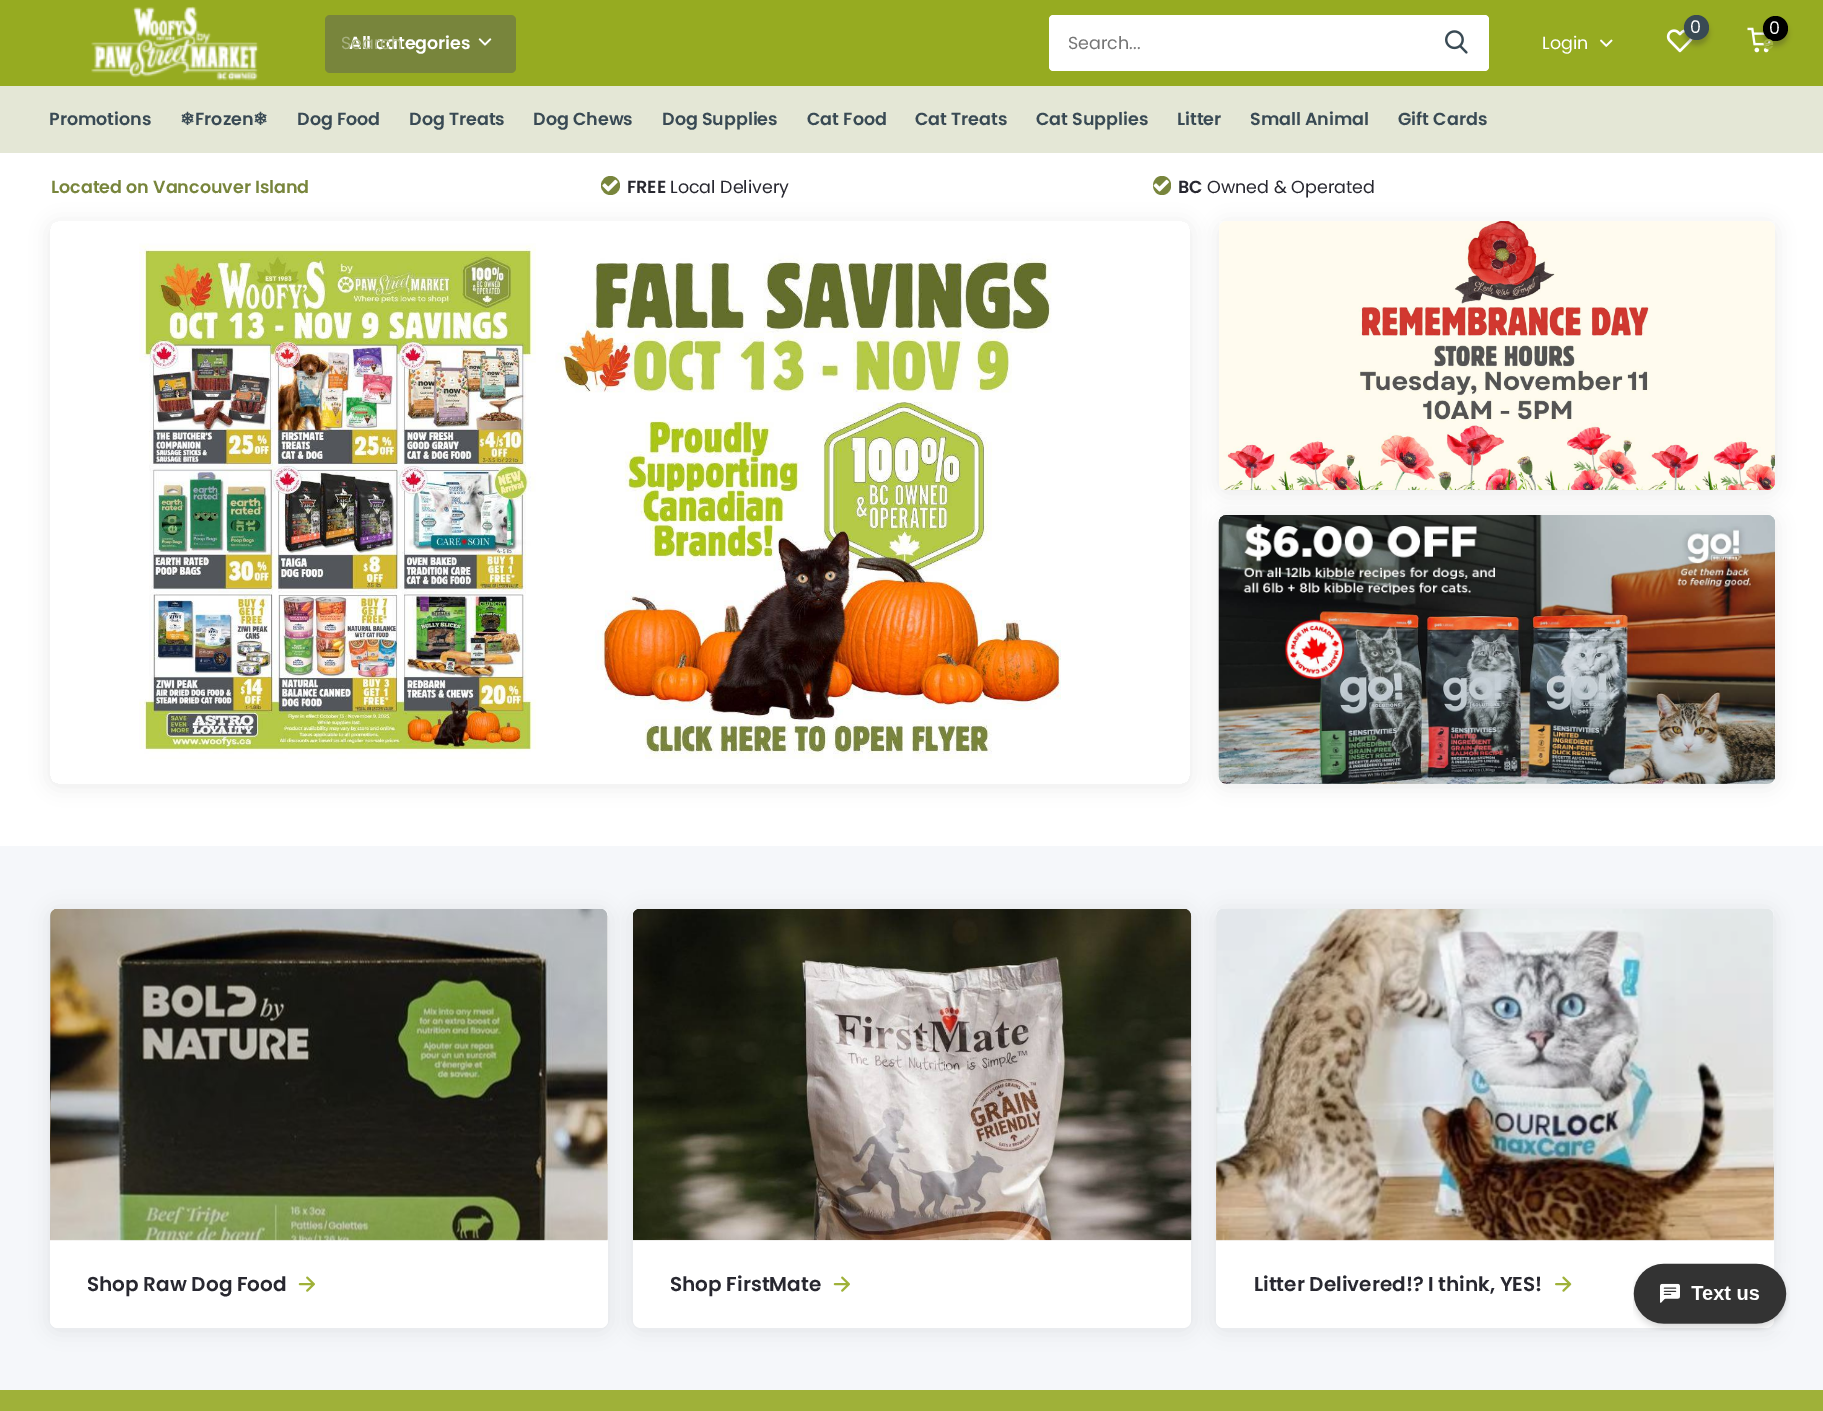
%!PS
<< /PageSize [1823 1411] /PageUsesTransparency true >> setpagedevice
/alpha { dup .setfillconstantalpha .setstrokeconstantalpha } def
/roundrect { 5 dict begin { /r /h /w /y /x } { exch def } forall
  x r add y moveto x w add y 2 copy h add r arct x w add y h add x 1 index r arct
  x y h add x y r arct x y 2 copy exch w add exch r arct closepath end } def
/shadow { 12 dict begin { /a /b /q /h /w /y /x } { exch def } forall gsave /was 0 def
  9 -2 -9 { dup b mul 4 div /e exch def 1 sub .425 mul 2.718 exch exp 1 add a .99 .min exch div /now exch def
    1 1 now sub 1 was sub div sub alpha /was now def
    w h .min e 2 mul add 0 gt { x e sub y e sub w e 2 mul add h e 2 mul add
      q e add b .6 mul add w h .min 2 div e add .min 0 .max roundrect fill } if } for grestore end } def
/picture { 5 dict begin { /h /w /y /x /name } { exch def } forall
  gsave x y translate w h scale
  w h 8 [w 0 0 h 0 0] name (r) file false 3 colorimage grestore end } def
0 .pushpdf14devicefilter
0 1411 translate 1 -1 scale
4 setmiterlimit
1 setgray
0 0 1823 1411 rectfill
0.588 0.671 0.129 setrgbcolor
0 0 1823 86 rectfill
(img1.rgb) 91 6 168 75 picture
0.471 0.522 0.235 setrgbcolor
325 15 191 58 5 roundrect fill
/Poppins-SemiBold [17.5 0 0 -17.5 0 0] selectfont
1 setgray
349 49 moveto (All categories) show
(img2.rgb) 478 38 14 8 picture
(img3.rgb) 1666 29 27 24 picture
0.157 0.157 0.188 setrgbcolor
1684 20 25 25 12.5 2.5 0.25 shadow
0.224 0.29 0.329 setrgbcolor
newpath 1696.5 27.5 12.5 0 360 arc closepath fill
/Poppins-Regular [17.5 0 0 -17.5 0 0] selectfont
1 setgray
1690 33 moveto (0) show
(img4.rgb) 1747 27 25 26 picture
0.157 0.157 0.188 setrgbcolor
1763 21 25 25 12.5 2.5 0.25 shadow
0 setgray
newpath 1775.5 28.5 12.5 0 360 arc closepath fill
1 setgray
1769 34 moveto (0) show
newpath 1054 15 moveto 1426 15 lineto 1426 71 lineto 1054 71 lineto 1051 71 1049 69 1049 66 curveto 1049 20 lineto 1049 17 1051 15 1054 15 curveto closepath fill
newpath 1054 15 moveto 1426 15 lineto 1426 71 lineto 1054 71 lineto 1051 71 1049 69 1049 66 curveto 1049 20 lineto 1049 17 1051 15 1054 15 curveto closepath 1054 16 moveto 1426 16 lineto 1426 70 lineto 1054 70 lineto 1052 70 1050 68 1050 66 curveto 1050 20 lineto 1050 18 1052 16 1054 16 curveto closepath eofill
0.459 setgray
1068 49 moveto (Search...) show
1 setgray
newpath 1426 15 moveto 1484 15 lineto 1487 15 1489 17 1489 20 curveto 1489 66 lineto 1489 69 1487 71 1484 71 curveto 1426 71 lineto closepath fill
newpath 1426 15 moveto 1484 15 lineto 1487 15 1489 17 1489 20 curveto 1489 66 lineto 1489 69 1487 71 1484 71 curveto 1426 71 lineto closepath 1426 16 moveto 1484 16 lineto 1486 16 1488 18 1488 20 curveto 1488 66 lineto 1488 68 1486 70 1484 70 curveto 1426 70 lineto closepath eofill
(img5.rgb) 1445 30 23 24 picture
1542 49 moveto (Login) show
(img6.rgb) 1600 39 13 8 picture
0.655 0.69 0.502 setrgbcolor
341 49 moveto (Search) show
/Poppins-Medium [17.5 0 0 -17.5 0 0] selectfont
0.635 0.706 0.255 setrgbcolor
1763 49 moveto 1 0 (e) ashow
0.894 0.906 0.839 setrgbcolor
0 86 1823 67 rectfill
/Poppins-SemiBold [17.5 0 0 -17.5 0 0] selectfont
0.224 0.29 0.329 setrgbcolor
49 125 moveto (Promotions) show
/DejaVuSans-Bold [17.5 0 0 -17.5 0 0] selectfont
180 125 moveto (❄) show
/Poppins-SemiBold [17.5 0 0 -17.5 0 0] selectfont
195 125 moveto (Frozen) show
/DejaVuSans-Bold [17.5 0 0 -17.5 0 0] selectfont
253 125 moveto (❄) show
/Poppins-SemiBold [17.5 0 0 -17.5 0 0] selectfont
297 125 moveto (Dog Food) show
409 125 moveto (Dog Treats) show
533 125 moveto (Dog Chews) show
662 125 moveto (Dog Supplies) show
807 125 moveto (Cat Food) show
915 125 moveto (Cat Treats) show
1036 125 moveto (Cat Supplies) show
1177 125 moveto (Litter) show
1250 125 moveto (Small Animal) show
1398 125 moveto (Gift Cards) show
0.471 0.522 0.235 setrgbcolor
51 193 moveto (Located on Vancouver Island) show
gsave
newpath 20 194 moveto 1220 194 lineto 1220 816 lineto 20 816 lineto closepath 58 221 moveto 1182 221 lineto 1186.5 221 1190 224.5 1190 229 curveto 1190 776 lineto 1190 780.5 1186.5 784 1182 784 curveto 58 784 lineto 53.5 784 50 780.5 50 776 curveto 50 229 lineto 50 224.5 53.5 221 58 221 curveto closepath eoclip newpath
0 setgray
50 224 1140 562 8 9.5 0.08 shadow
grestore
newpath 610.5 185.5 9.5 0 360 arc closepath fill
(img7.rgb) 602 179 16 13 picture
0.157 0.157 0.188 setrgbcolor
627 193 moveto (FREE) show
/Poppins-Regular [17.5 0 0 -17.5 0 0] selectfont
670 193 moveto (Local Delivery) show
0.471 0.522 0.235 setrgbcolor
1153 176 18 19 9 roundrect fill
(img8.rgb) 1153 179 16 13 picture
/Poppins-SemiBold [17.5 0 0 -17.5 0 0] selectfont
0.157 0.157 0.188 setrgbcolor
1178 193 moveto (BC) show
/Poppins-Regular [17.5 0 0 -17.5 0 0] selectfont
1207 193 moveto (Owned & Operated) show
(img9.rgb) 139 243 922 516 picture
(img10.rgb) 179 683 434 1 picture
0 setgray
1219 224 556 269 8 9.5 0.08 shadow
(img11.rgb) 1219 221 556 269 picture
(img12.rgb) 1223 221 552 269 picture
1219 518 556 268 8 9.5 0.08 shadow
(img13.rgb) 1218 515 557 269 picture
(img14.rgb) 1218 515 557 269 picture
0.961 0.969 0.98 setrgbcolor
0 846 1823 544 rectfill
0 setgray
50 911 558 419 8 9.5 0.08 shadow
1 setgray
50 909 558 419 8 roundrect fill
newpath 50 1240 moveto 608 1240 lineto 608 1320 lineto 608 1324.5 604.5 1328 600 1328 curveto 58 1328 lineto 53.5 1328 50 1324.5 50 1320 curveto closepath fill
(img15.rgb) 50 909 558 332 picture
(img16.rgb) 50 909 558 331 picture
/Poppins-SemiBold [20 0 0 -20 0 0] selectfont
0.157 0.157 0.188 setrgbcolor
87 1291 moveto (Shop Raw Dog Food) show
(img17.rgb) 298 1276 17 16 picture
0 setgray
633 911 558 419 8 9.5 0.08 shadow
1 setgray
newpath 633 1240 moveto 1191 1240 lineto 1191 1320 lineto 1191 1324.5 1187.5 1328 1183 1328 curveto 641 1328 lineto 636.5 1328 633 1324.5 633 1320 curveto closepath fill
(img18.rgb) 633 909 559 332 picture
(img19.rgb) 633 909 559 331 picture
0.157 0.157 0.188 setrgbcolor
670 1291 moveto (Shop FirstMate) show
(img17.rgb) 833 1276 17 16 picture
0 setgray
1216 911 558 419 8 9.5 0.08 shadow
1 setgray
1216 909 558 419 8 roundrect fill
newpath 1216 1240 moveto 1774 1240 lineto 1774 1320 lineto 1774 1324.5 1770.5 1328 1766 1328 curveto 1224 1328 lineto 1219.5 1328 1216 1324.5 1216 1320 curveto closepath fill
(img20.rgb) 1216 909 558 332 picture
(img21.rgb) 1216 909 558 331 picture
0.157 0.157 0.188 setrgbcolor
1254 1291 moveto (Litter Delivered!? I think, YES!) show
(img22.rgb) 1555 1276 17 16 picture
(img23.rgb) 1633 1263 157 68 picture
0.624 0.694 0.224 setrgbcolor
0 1390 1823 21 rectfill
.poppdf14devicefilter showpage
